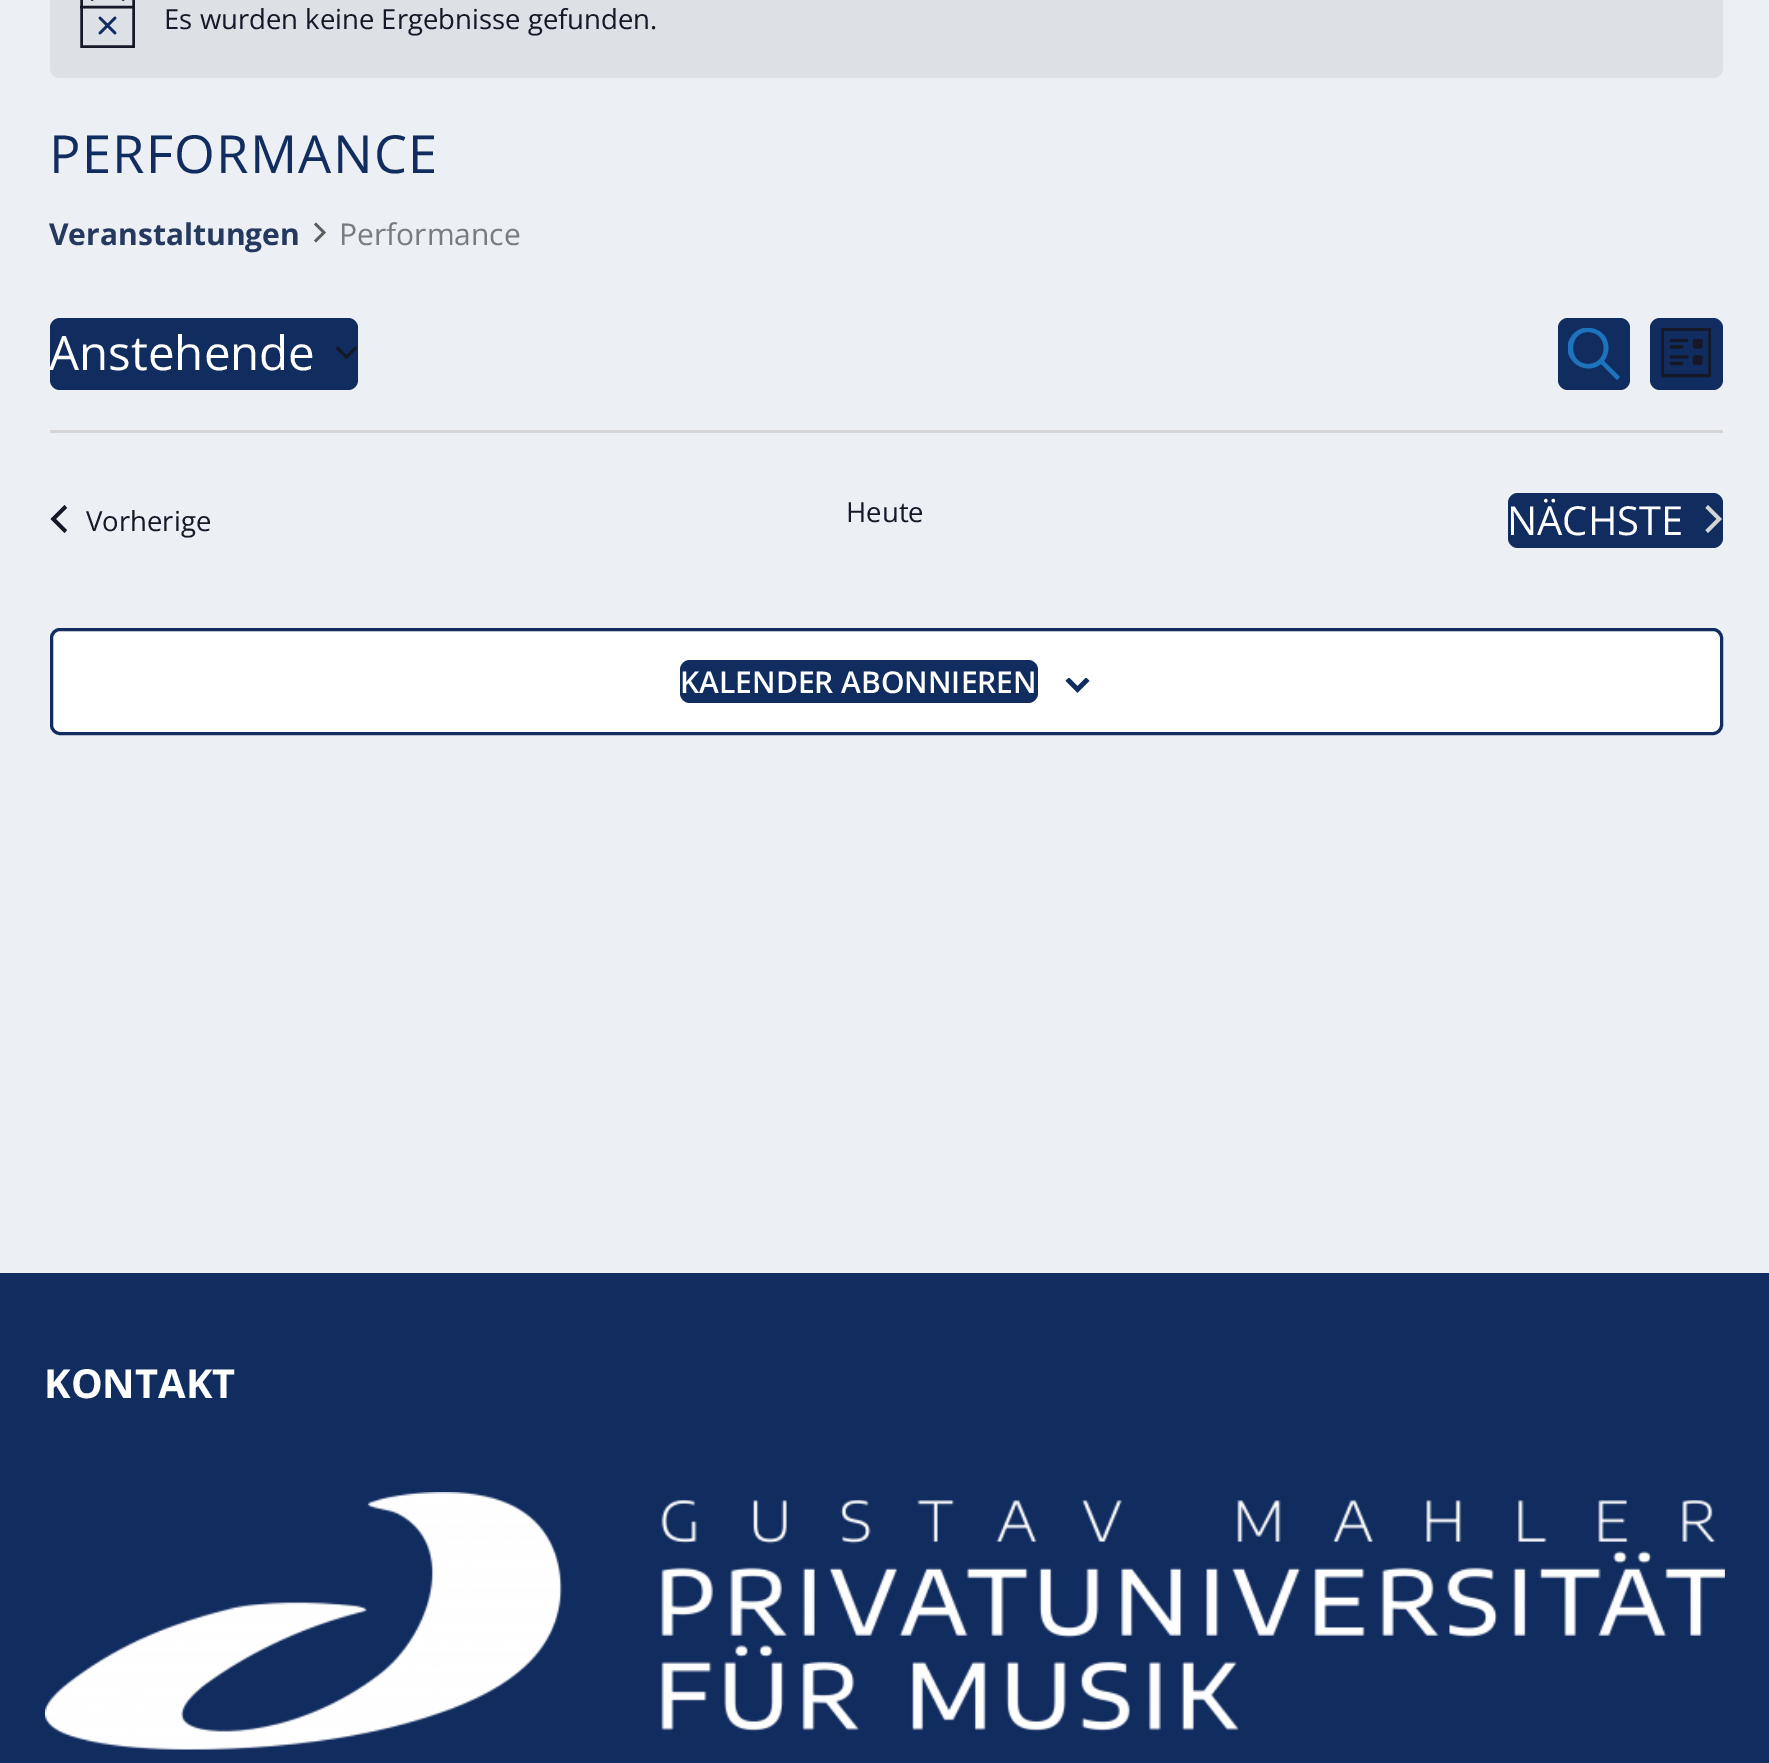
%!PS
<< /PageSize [1769 1763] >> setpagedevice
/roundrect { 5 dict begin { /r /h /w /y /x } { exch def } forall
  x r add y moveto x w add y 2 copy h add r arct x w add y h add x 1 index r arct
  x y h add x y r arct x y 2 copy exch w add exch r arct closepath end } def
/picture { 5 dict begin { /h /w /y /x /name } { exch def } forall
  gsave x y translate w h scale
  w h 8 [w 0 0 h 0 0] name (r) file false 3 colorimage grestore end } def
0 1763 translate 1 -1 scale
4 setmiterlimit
0.925 0.941 0.961 setrgbcolor
0 0 1769 1763 rectfill
0.867 0.882 0.902 setrgbcolor
50 -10 1673 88 10 roundrect fill
0.078 0.094 0.153 setrgbcolor
2.6 setlinewidth
newpath 81.5 -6 moveto 133.5 -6 lineto 133.5 46.5 lineto 81.5 46.5 lineto closepath stroke
0.067 0.173 0.373 setrgbcolor
1 setlinecap
newpath 100 18 moveto 115 33 lineto 115 18 moveto 100 33 lineto stroke
0.078 0.094 0.153 setrgbcolor
newpath 92 -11 moveto 92 -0.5 lineto 123 -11 moveto 123 -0.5 lineto stroke
2 setlinecap
newpath 81.5 7 moveto 133.5 7 lineto stroke
/OpenSans-Regular [27.5 0 0 -27.5 0 0] selectfont
164 29 moveto (Es wurden keine Ergebnisse gefunden.) show
/OpenSans-Regular [52.5 0 0 -52.5 0 0] selectfont
0.067 0.173 0.373 setrgbcolor
49 173 moveto 1.25 0 (PERFORMANCE) ashow
/OpenSans-Bold [30 0 0 -30 0 0] selectfont
0.145 0.22 0.369 setrgbcolor
49 245 moveto (Veranstaltungen) show
0.365 setgray
newpath 314 224.5 moveto 316 222.5 lineto 326 232.5 lineto 316 242.5 lineto 314 240.5 lineto 322 232.5 lineto closepath fill
/OpenSans-Regular [30 0 0 -30 0 0] selectfont
0.475 0.482 0.49 setrgbcolor
339 245 moveto (Performance) show
0.067 0.173 0.373 setrgbcolor
50 318 308 72 10 roundrect fill
/OpenSans-Regular [47.5 0 0 -47.5 0 0] selectfont
1 setgray
49 370 moveto (Anstehende) show
0.078 0.094 0.153 setrgbcolor
newpath 337.5 346.5 moveto 346.5 355 lineto 355 346.5 lineto 357 348.5 lineto 346.5 359 lineto 335.5 348.5 lineto closepath eofill
0.067 0.173 0.373 setrgbcolor
1558 318 72 72 10 roundrect fill
gsave
1568 328 52 52 rectclip
0.118 0.451 0.745 setrgbcolor
newpath 1604 361 moveto 1620 377 lineto 1617 380 lineto 1601 364 lineto 1583 378 1558 356 1571 337 curveto 1574 332 1579 329 1584 328 curveto 1591 327 1598 329 1603 334 curveto 1610 341 1610 353 1604 361 curveto closepath 1588 332 moveto 1568 332 1568 364 1588 364 curveto 1609 364 1609 332 1588 332 curveto closepath eofill
grestore
1650 318 73 72 10 roundrect fill
(img1.rgb) 1661 328 51 50 picture
0.835 setgray
50 430 1673 3 rectfill
0.078 0.094 0.153 setrgbcolor
newpath 67 530 moveto 64.5 533 lineto 50.5 519 lineto 64.5 505 lineto 67 508 lineto 56 519 lineto closepath fill
/OpenSans-Regular [27.5 0 0 -27.5 0 0] selectfont
86 531 moveto (Vorherige) show
846 522 moveto (Heute) show
0.067 0.173 0.373 setrgbcolor
1508 493 215 55 10 roundrect fill
/OpenSans-Regular [40 0 0 -40 0 0] selectfont
1 setgray
1507 535 moveto (NÄCHSTE) show
0.835 setgray
newpath 1705.5 508 moveto 1708 505 lineto 1722 519 lineto 1708 533 lineto 1705.5 530 lineto 1716.5 519 lineto closepath fill
1 setgray
51.5 629.5 1670 104 8.5 roundrect gsave fill grestore
0.067 0.173 0.373 setrgbcolor
3 setlinewidth
0 setlinecap
stroke
680 660 358 43 10 roundrect fill
/OpenSans-SemiBold [30 0 0 -30 0 0] selectfont
1 setgray
680 693 moveto (KALENDER ABONNIEREN) show
(img2.rgb) 1065 678 25 15 picture
0.067 0.173 0.373 setrgbcolor
0 1273 1769 490 rectfill
/OpenSans-Bold [40 0 0 -40 0 0] selectfont
1 setgray
44 1398 moveto (KONTAKT) show
(img3.rgb) 45 1492 1680 258 picture
showpage
